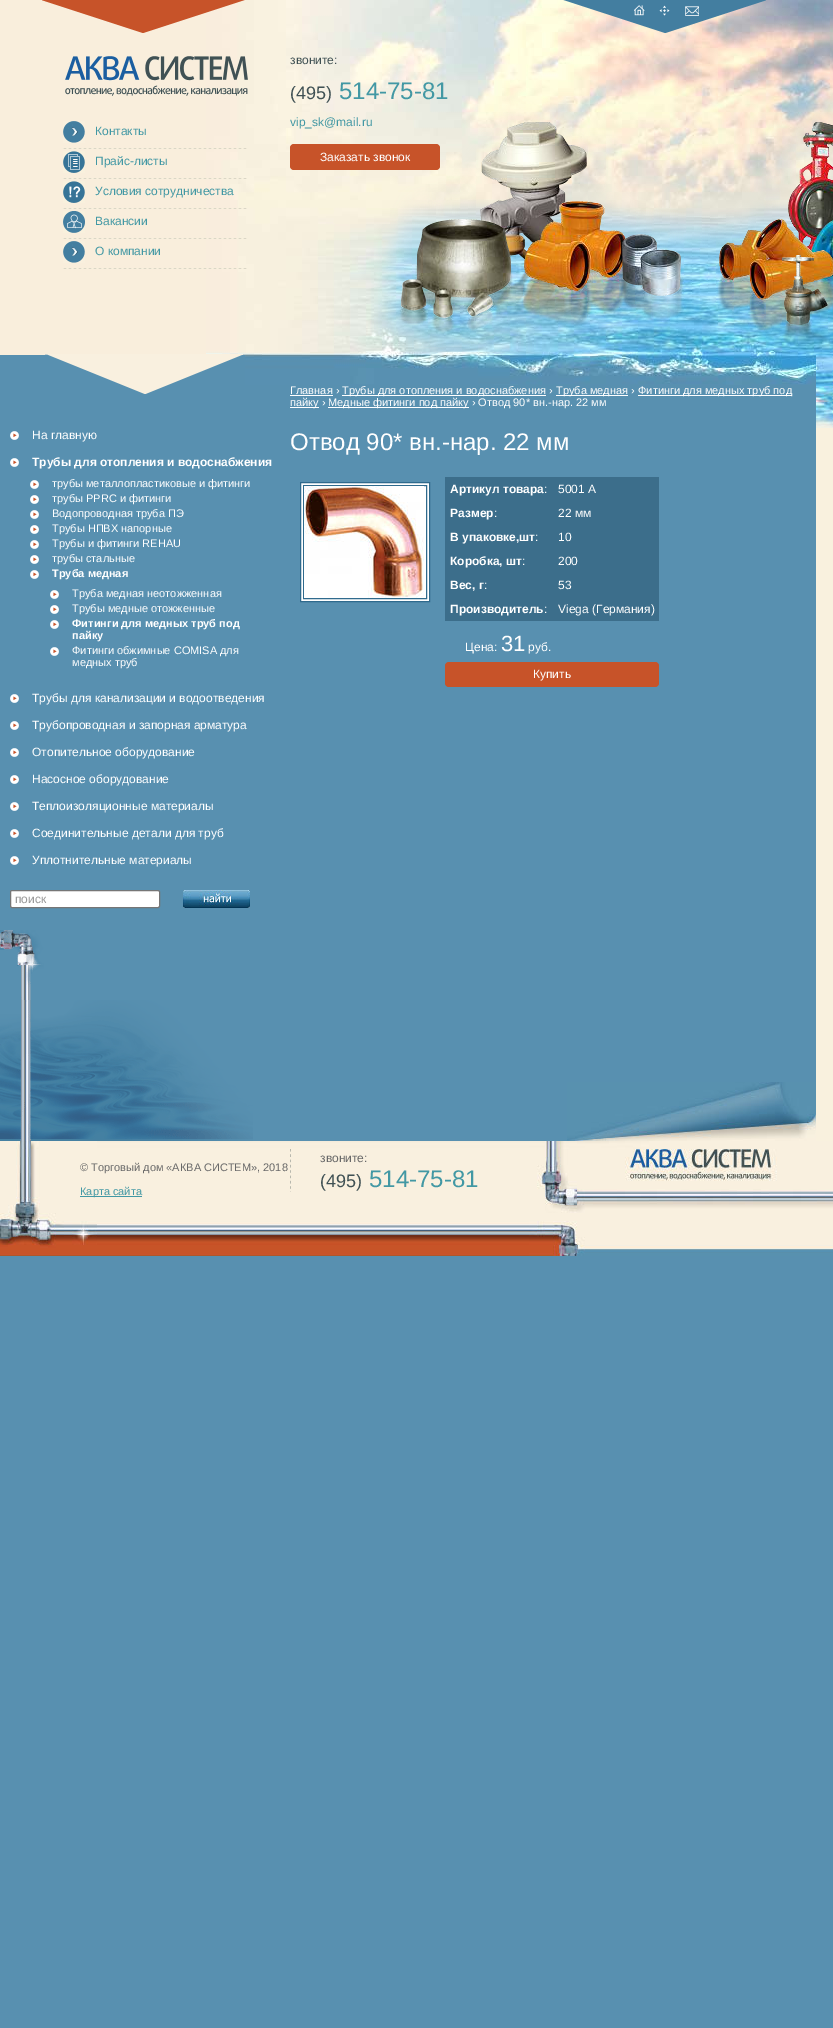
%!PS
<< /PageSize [833 2028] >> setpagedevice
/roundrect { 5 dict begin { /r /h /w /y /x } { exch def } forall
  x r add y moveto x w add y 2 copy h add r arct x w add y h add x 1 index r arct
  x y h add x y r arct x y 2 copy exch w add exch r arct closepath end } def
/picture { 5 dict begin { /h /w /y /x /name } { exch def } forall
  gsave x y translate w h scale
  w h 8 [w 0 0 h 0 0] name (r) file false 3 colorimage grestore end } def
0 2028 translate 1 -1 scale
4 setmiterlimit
0.345 0.565 0.69 setrgbcolor
0 0 833 2028 rectfill
0.976 0.933 0.863 setrgbcolor
0 0 206 355 rectfill
(img1.rgb) 206 0 627 385 picture
(img2.rgb) 563 0 203 33 picture
/LiberationSans-Regular [12 0 0 -12 0 0] selectfont
0.251 0.318 0.329 setrgbcolor
290 64 moveto (звоните:) show
/LiberationSans-Regular [18 0 0 -18 0 0] selectfont
290 99 moveto (\(495\)) show
(img3.rgb) 371 90 462 257 picture
/LiberationSans-Regular [24 0 0 -24 0 0] selectfont
0.259 0.596 0.643 setrgbcolor
339 99 moveto (514-75-81) show
/LiberationSans-Regular [12 0 0 -12 0 0] selectfont
290 126 moveto (vip_sk@mail.ru) show
0.78 0.325 0.161 setrgbcolor
290 144 150 26 4 roundrect fill
1 setgray
320 161 moveto (Заказать звонок) show
(img4.rgb) 42 0 206 96 picture
(img5.rgb) 63 148 184 1 picture
(img6.rgb) 63 121 22 22 picture
0.259 0.596 0.643 setrgbcolor
95 135 moveto (Контакты) show
(img5.rgb) 63 178 184 1 picture
(img7.rgb) 63 151 22 22 picture
95 165 moveto (Прайс-листы) show
(img5.rgb) 63 208 184 1 picture
(img8.rgb) 63 181 22 22 picture
95 195 moveto (Условия сотрудничества) show
(img5.rgb) 63 238 184 1 picture
(img9.rgb) 63 211 22 22 picture
95 225 moveto (Вакансии) show
(img5.rgb) 63 268 184 1 picture
(img6.rgb) 63 241 22 22 picture
95 255 moveto (О компании) show
(img10.rgb) 45 354 200 40 picture
/LiberationSans-Regular [11 0 0 -11 0 0] selectfont
1 setgray
290 394 moveto (Главная ›) show
290 395 43 1 rectfill
342 395 204 1 rectfill
342 394 moveto (Трубы для отопления и водоснабжения ›) show
556 395 72 1 rectfill
556 394 moveto (Труба медная ›) show
638 395 154 1 rectfill
638 394 moveto (Фитинги для медных труб под) show
290 407 29 1 rectfill
290 406 moveto (пайку ›) show
328 407 141 1 rectfill
328 406 moveto (Медные фитинги под пайку › Отвод 90* вн.-нар. 22 мм) show
(img11.rgb) 816 354 17 74 picture
(img12.rgb) 0 930 253 211 picture
(img13.rgb) 10 431 9 9 picture
/LiberationSans-Regular [12 0 0 -12 0 0] selectfont
32 439 moveto (На главную) show
(img13.rgb) 10 458 9 9 picture
/LiberationSans-Bold [12 0 0 -12 0 0] selectfont
32 466 moveto (Трубы для отопления и водоснабжения) show
(img13.rgb) 30 480 9 9 picture
/LiberationSans-Regular [11 0 0 -11 0 0] selectfont
52 487 moveto (трубы металлопластиковые и фитинги) show
(img13.rgb) 30 495 9 9 picture
52 502 moveto (трубы PPRC и фитинги) show
(img13.rgb) 30 510 9 9 picture
52 517 moveto (Водопроводная труба ПЭ) show
(img13.rgb) 30 525 9 9 picture
52 532 moveto (Трубы НПВХ напорные) show
(img13.rgb) 30 540 9 9 picture
52 547 moveto (Трубы и фитинги REHAU) show
(img13.rgb) 30 555 9 9 picture
52 562 moveto (трубы стальные) show
(img13.rgb) 30 570 9 9 picture
/LiberationSans-Bold [11 0 0 -11 0 0] selectfont
52 577 moveto (Труба медная) show
(img13.rgb) 50 590 9 9 picture
/LiberationSans-Regular [11 0 0 -11 0 0] selectfont
72 597 moveto (Труба медная неотожженная) show
(img13.rgb) 50 605 9 9 picture
72 612 moveto (Трубы медные отожженные) show
(img13.rgb) 50 620 9 9 picture
/LiberationSans-Bold [11 0 0 -11 0 0] selectfont
72 627 moveto (Фитинги для медных труб под) show
72 639 moveto (пайку) show
(img13.rgb) 50 647 9 9 picture
/LiberationSans-Regular [11 0 0 -11 0 0] selectfont
72 654 moveto (Фитинги обжимные COMISA для) show
72 666 moveto (медных труб) show
(img13.rgb) 10 694 9 9 picture
/LiberationSans-Regular [12 0 0 -12 0 0] selectfont
32 702 moveto (Трубы для канализации и водоотведения) show
(img13.rgb) 10 721 9 9 picture
32 729 moveto (Трубопроводная и запорная арматура) show
(img13.rgb) 10 748 9 9 picture
32 756 moveto (Отопительное оборудование) show
(img13.rgb) 10 775 9 9 picture
32 783 moveto (Насосное оборудование) show
(img13.rgb) 10 802 9 9 picture
32 810 moveto (Теплоизоляционные материалы) show
(img13.rgb) 10 829 9 9 picture
32 837 moveto (Соединительные детали для труб) show
(img13.rgb) 10 856 9 9 picture
32 864 moveto (Уплотнительные материалы) show
10.5 890.5 149 17 1.5 roundrect gsave fill grestore
0.463 setgray
stroke
0.6 setgray
15 903 moveto (поиск) show
(img14.rgb) 183 890 67 18 picture
/LiberationSans-Regular [24 0 0 -24 0 0] selectfont
1 setgray
290 450 moveto (Отвод 90* вн.-нар. 22 мм) show
newpath 300.5 482.5 moveto 429.5 482.5 lineto 429.5 601.5 lineto 300.5 601.5 lineto closepath gsave fill grestore
0.184 0.416 0.553 setrgbcolor
stroke
303.5 485.5 123 113 rectstroke
(img15.rgb) 304 486 120 112 picture
0.235 0.431 0.545 setrgbcolor
445 477 214 144 rectfill
/LiberationSans-Bold [12 0 0 -12 0 0] selectfont
1 setgray
450 493 moveto (Артикул товара) show
/LiberationSans-Regular [12 0 0 -12 0 0] selectfont
544 493 moveto (:) show
558 493 moveto (5001 А) show
/LiberationSans-Bold [12 0 0 -12 0 0] selectfont
450 517 moveto (Размер) show
/LiberationSans-Regular [12 0 0 -12 0 0] selectfont
494 517 moveto (:) show
558 517 moveto (22 мм) show
/LiberationSans-Bold [12 0 0 -12 0 0] selectfont
450 541 moveto (В упаковке,шт) show
/LiberationSans-Regular [12 0 0 -12 0 0] selectfont
535 541 moveto (:) show
558 541 moveto (10) show
/LiberationSans-Bold [12 0 0 -12 0 0] selectfont
450 565 moveto (Коробка, шт) show
/LiberationSans-Regular [12 0 0 -12 0 0] selectfont
522 565 moveto (:) show
558 565 moveto (200) show
/LiberationSans-Bold [12 0 0 -12 0 0] selectfont
450 589 moveto (Вес, г) show
/LiberationSans-Regular [12 0 0 -12 0 0] selectfont
484 589 moveto (:) show
558 589 moveto (53) show
/LiberationSans-Bold [12 0 0 -12 0 0] selectfont
450 613 moveto (Производитель) show
/LiberationSans-Regular [12 0 0 -12 0 0] selectfont
544 613 moveto (:) show
558 613 moveto (Viega \(Германия\)) show
465 651 moveto (Цена:) show
/LiberationSans-Regular [22 0 0 -22 0 0] selectfont
501 651 moveto (31) show
/LiberationSans-Regular [12 0 0 -12 0 0] selectfont
528 651 moveto (руб.) show
0.78 0.325 0.161 setrgbcolor
445 662 214 25 4 roundrect fill
1 setgray
533 678 moveto (Купить) show
0.976 0.945 0.871 setrgbcolor
816 428 17 713 rectfill
(img16.rgb) 567 1082 249 59 picture
(img17.rgb) 0 1141 290 115 picture
(img18.rgb) 0 1141 97 107 picture
/LiberationSans-Regular [11 0 0 -11 0 0] selectfont
0.412 setgray
80 1171 moveto (© Торговый дом «АКВА СИСТЕМ», 2018) show
0.259 0.596 0.643 setrgbcolor
80 1196 62 1 rectfill
80 1195 moveto (Карта сайта) show
(img19.rgb) 290 1141 239 115 picture
(img20.rgb) 290 1149 1 43 picture
/LiberationSans-Regular [12 0 0 -12 0 0] selectfont
0.412 setgray
320 1162 moveto (звоните:) show
/LiberationSans-Regular [18 0 0 -18 0 0] selectfont
0.251 0.318 0.329 setrgbcolor
320 1187 moveto (\(495\)) show
/LiberationSans-Regular [24 0 0 -24 0 0] selectfont
0.259 0.596 0.643 setrgbcolor
369 1187 moveto (514-75-81) show
(img21.rgb) 529 1141 304 115 picture
showpage
